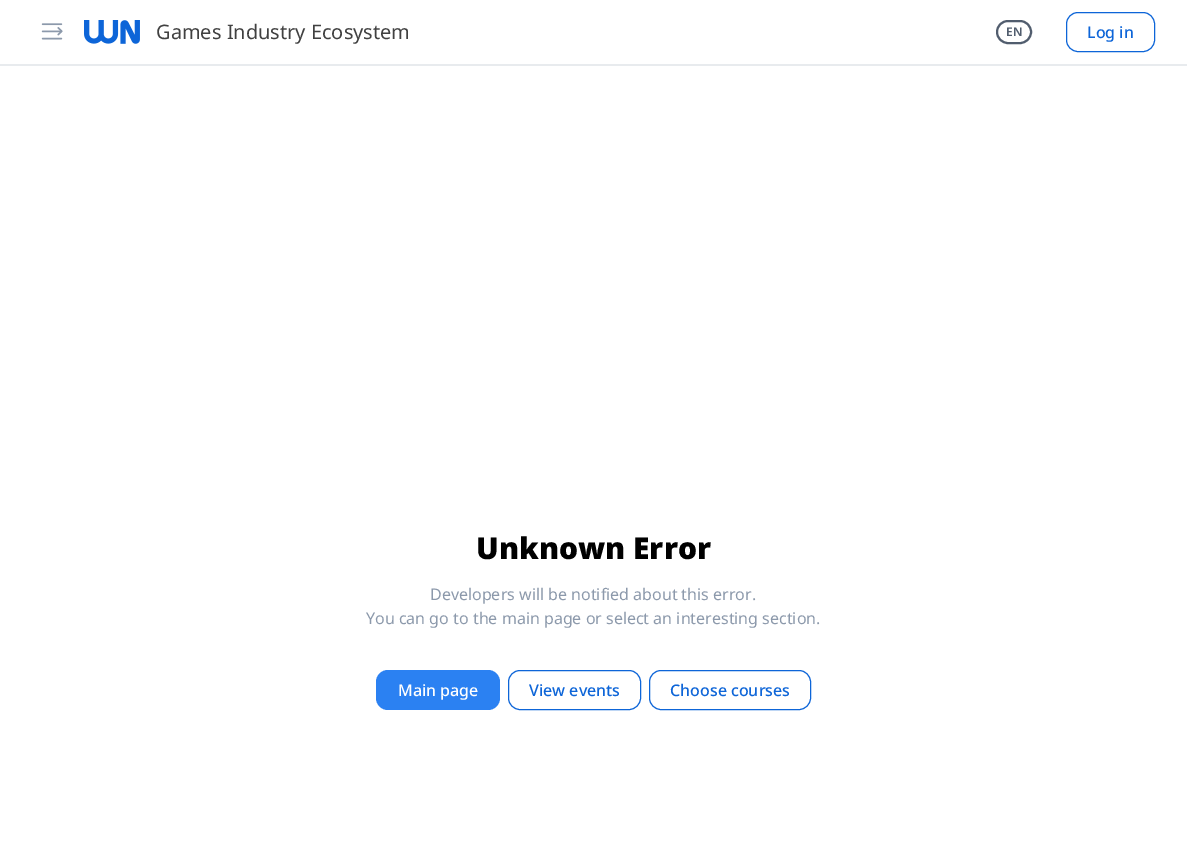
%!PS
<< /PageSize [1187 845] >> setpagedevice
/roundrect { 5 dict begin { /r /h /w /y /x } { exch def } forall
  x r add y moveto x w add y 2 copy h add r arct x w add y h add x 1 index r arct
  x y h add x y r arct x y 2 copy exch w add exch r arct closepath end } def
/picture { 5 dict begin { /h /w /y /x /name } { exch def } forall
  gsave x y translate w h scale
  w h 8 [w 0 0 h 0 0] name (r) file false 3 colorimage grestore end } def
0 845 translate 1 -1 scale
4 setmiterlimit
0.91 0.922 0.933 setrgbcolor
0 0 1187 845 rectfill
1 setgray
0 0 1187 64 rectfill
(img1.rgb) 41 23 22 17 picture
(img2.rgb) 84 20 56 24 picture
/NotoSans-Regular [20 0 0 -20 0 0] selectfont
0.255 setgray
156 39 moveto (Games Industry Ecosystem) show
0.318 0.365 0.431 setrgbcolor
2 setlinewidth
997 21 34 22 11 roundrect stroke
/NotoSans-SemiBold [12 0 0 -12 0 0] selectfont
1006 36 moveto (EN) show
0.051 0.396 0.847 setrgbcolor
1 setlinewidth
1066.5 12.5 88 39 11.5 roundrect stroke
/NotoSans-Medium [16 0 0 -16 0 0] selectfont
1087 38 moveto (Log in) show
1 setgray
0 66 1187 779 rectfill
/NotoSans-Black [30 0 0 -30 0 0] selectfont
0 setgray
476 559 moveto (Unknown Error) show
/NotoSans-Regular [16 0 0 -16 0 0] selectfont
0.549 0.6 0.671 setrgbcolor
430 600 moveto (Developers will be notified about this error.) show
366 624 moveto (You can go to the main page or select an interesting section.) show
0.169 0.506 0.949 setrgbcolor
376 670 124 40 12 roundrect fill
/NotoSans-Medium [16 0 0 -16 0 0] selectfont
1 setgray
398 696 moveto (Main page) show
0.051 0.396 0.847 setrgbcolor
508.5 670.5 132 39 11.5 roundrect stroke
529 696 moveto (View events) show
649.5 670.5 161 39 11.5 roundrect stroke
670 696 moveto (Choose courses) show
showpage
